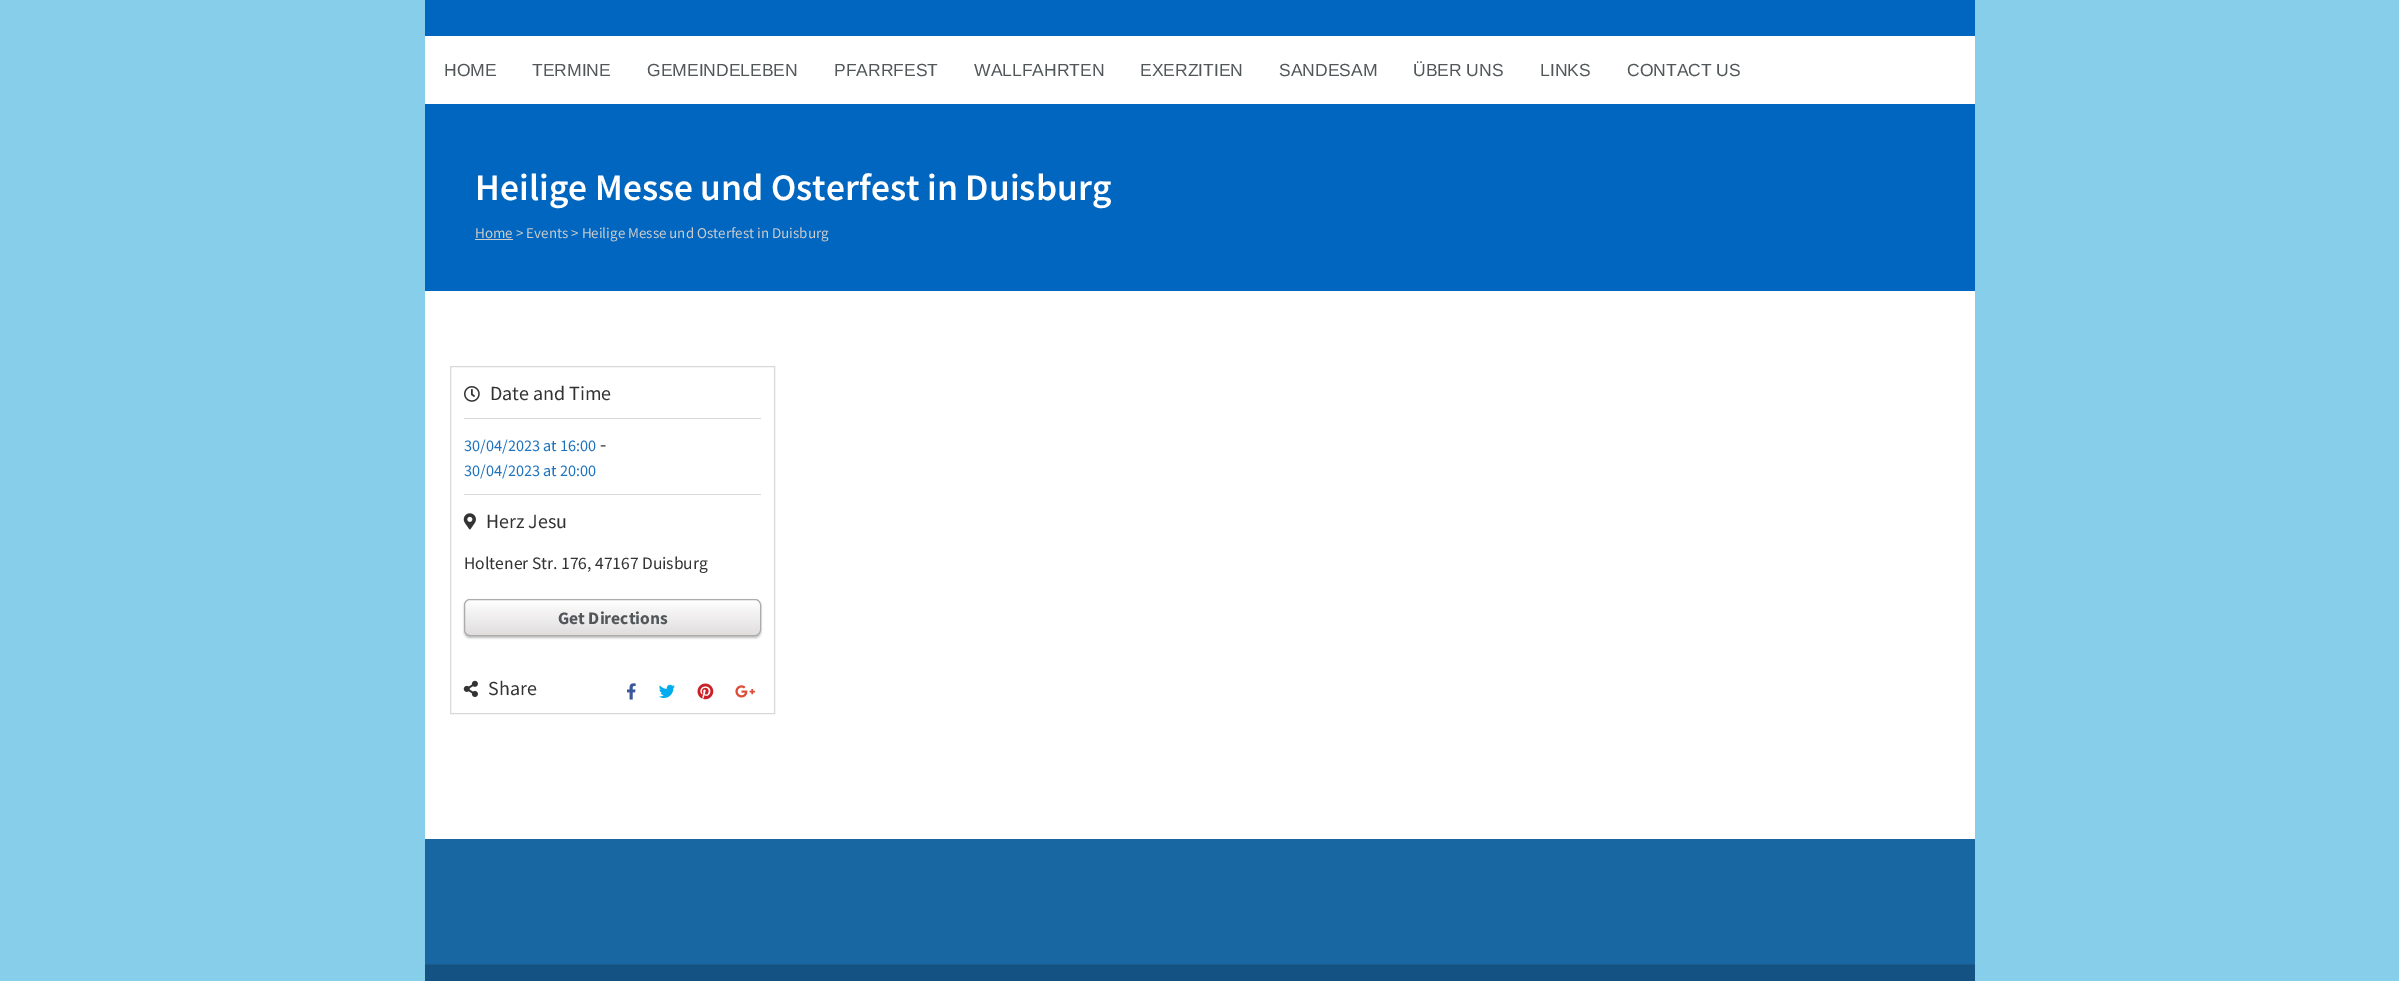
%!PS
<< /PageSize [2399 981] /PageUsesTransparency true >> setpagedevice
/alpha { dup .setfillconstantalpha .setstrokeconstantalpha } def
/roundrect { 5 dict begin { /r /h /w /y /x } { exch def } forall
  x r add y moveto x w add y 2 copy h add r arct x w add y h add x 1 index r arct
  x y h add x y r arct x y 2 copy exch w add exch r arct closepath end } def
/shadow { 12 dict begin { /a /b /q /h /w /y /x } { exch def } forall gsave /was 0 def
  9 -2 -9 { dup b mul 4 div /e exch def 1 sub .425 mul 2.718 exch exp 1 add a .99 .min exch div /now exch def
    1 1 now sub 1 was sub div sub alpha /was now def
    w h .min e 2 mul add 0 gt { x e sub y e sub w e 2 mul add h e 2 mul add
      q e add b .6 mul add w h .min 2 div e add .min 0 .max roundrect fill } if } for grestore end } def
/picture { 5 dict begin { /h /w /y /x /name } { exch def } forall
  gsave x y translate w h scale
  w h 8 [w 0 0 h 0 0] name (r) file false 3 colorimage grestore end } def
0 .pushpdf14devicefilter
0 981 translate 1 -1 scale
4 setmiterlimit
0.529 0.808 0.922 setrgbcolor
0 0 2399 981 rectfill
0 0.4 0.749 setrgbcolor
425 0 1550 291 rectfill
1 setgray
425 36 1550 68 rectfill
/LiberationSans-Regular [17.5 0 0 -17.5 0 0] selectfont
0.318 0.337 0.349 setrgbcolor
444 76 moveto (HOME) show
532 76 moveto (TERMINE) show
647 76 moveto (GEMEINDELEBEN) show
834 76 moveto (PFARRFEST) show
974 76 moveto (WALLFAHRTEN) show
1140 76 moveto (EXERZITIEN) show
1279 76 moveto (SANDESAM) show
1413 76 moveto (ÜBER UNS) show
1540 76 moveto (LINKS) show
1627 76 moveto (CONTACT US) show
/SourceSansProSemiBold-SemiBold [37.5 0 0 -37.5 0 0] selectfont
1 setgray
475 200 moveto (Heilige Messe und Osterfest in Duisburg) show
0.8 setgray
475 239 38 1 rectfill
/SourceSansPro-Regular [15 0 0 -15 0 0] selectfont
475 238 moveto (Home > Events > Heilige Messe und Osterfest in Duisburg) show
1 setgray
425 291 1550 548 rectfill
0.851 setgray
450.5 366.5 324 347 rectstroke
464 418 297 1 rectfill
(img1.rgb) 464 386 16 16 picture
/SourceSansPro-Regular [20 0 0 -20 0 0] selectfont
0.2 setgray
490 400 moveto (Date and Time) show
0.851 setgray
464 494 297 1 rectfill
/SourceSansPro-Regular [16.25 0 0 -16.25 0 0] selectfont
0.118 0.451 0.745 setrgbcolor
464 451 moveto (30/04/2023 at 16:00) show
/SourceSansPro-Regular [20 0 0 -20 0 0] selectfont
0.2 setgray
600 451 moveto (-) show
/SourceSansPro-Regular [16.25 0 0 -16.25 0 0] selectfont
0.118 0.451 0.745 setrgbcolor
464 476 moveto (30/04/2023 at 20:00) show
(img2.rgb) 463 513 13 17 picture
/SourceSansPro-Regular [20 0 0 -20 0 0] selectfont
0.2 setgray
486 528 moveto (Herz Jesu) show
/SourceSansPro-Regular [17.5 0 0 -17.5 0 0] selectfont
464 569 moveto (Holtener Str. 176, 47167 Duisburg) show
0 setgray
464 600 297 38 6 1 0.25 shadow
gsave
464 599 297 37 6 roundrect clip newpath
gsave newpath 464 600 moveto 761 600 lineto 761 635 lineto 464 635 lineto closepath clip newpath
<< /ShadingType 2 /ColorSpace /DeviceRGB /Coords [613 600 613 635] /Extend [true true] /Function << /FunctionType 2 /Domain [0 1] /C0 [1 1 1] /C1 [0.878 0.867 0.867] /N 1 >> >> shfill grestore
grestore
0.675 setgray
464.5 599.5 296 36 5.5 roundrect stroke
/SourceSansPro-Bold [17.5 0 0 -17.5 0 0] selectfont
0.318 0.337 0.349 setrgbcolor
558 624 moveto (Get Directions) show
(img3.rgb) 463 680 15 17 picture
/SourceSansPro-Regular [20 0 0 -20 0 0] selectfont
0.2 setgray
488 695 moveto (Share) show
(img4.rgb) 627 683 9 17 picture
(img5.rgb) 659 684 16 14 picture
(img6.rgb) 697 683 17 17 picture
(img7.rgb) 735 685 20 13 picture
0.094 0.404 0.639 setrgbcolor
425 839 1550 125 rectfill
0.075 0.322 0.51 setrgbcolor
425 965 1550 16 rectfill
0.122 0.357 0.533 setrgbcolor
425 964 1550 1 rectfill
.poppdf14devicefilter showpage
